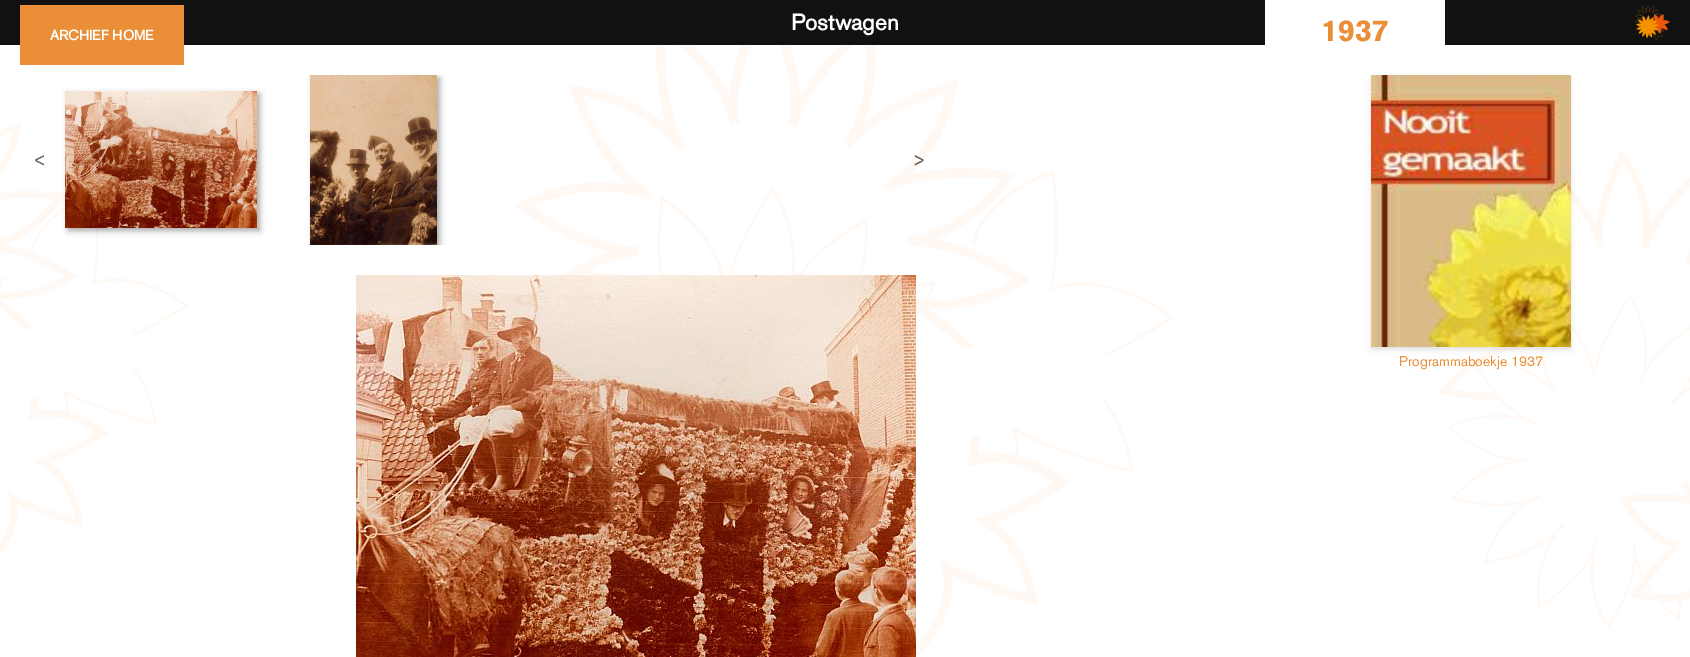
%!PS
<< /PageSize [1690 657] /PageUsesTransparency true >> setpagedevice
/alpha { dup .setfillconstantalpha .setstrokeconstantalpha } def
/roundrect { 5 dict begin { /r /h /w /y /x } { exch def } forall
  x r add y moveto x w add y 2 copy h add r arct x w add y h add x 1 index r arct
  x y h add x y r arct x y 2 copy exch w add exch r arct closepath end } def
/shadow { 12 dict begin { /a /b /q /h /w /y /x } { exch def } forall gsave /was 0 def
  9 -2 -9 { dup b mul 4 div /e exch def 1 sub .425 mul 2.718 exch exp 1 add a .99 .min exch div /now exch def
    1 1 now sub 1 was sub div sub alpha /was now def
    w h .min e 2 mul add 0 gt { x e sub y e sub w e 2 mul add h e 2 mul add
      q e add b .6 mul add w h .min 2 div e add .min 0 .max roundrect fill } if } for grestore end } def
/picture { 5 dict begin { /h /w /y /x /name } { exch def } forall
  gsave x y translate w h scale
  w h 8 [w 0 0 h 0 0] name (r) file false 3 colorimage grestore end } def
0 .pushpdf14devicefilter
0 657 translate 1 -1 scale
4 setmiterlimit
1 setgray
0 0 1690 657 rectfill
(img1.rgb) 0 45 1690 611 picture
0.067 setgray
0 0 1690 45 rectfill
0.918 0.557 0.22 setrgbcolor
20 5 164 60 rectfill
/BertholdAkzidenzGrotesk-Bold [14 0 0 -14 0 0] selectfont
1 setgray
50 40 moveto (ARCHIEF HOME) show
/BertholdAkzidenzGrotesk-Bold [22.5 0 0 -22.5 0 0] selectfont
791 30 moveto (Postwagen) show
1265 0 180 45 rectfill
/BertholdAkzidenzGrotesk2-Bold [30 0 0 -30 0 0] selectfont
0.918 0.557 0.22 setrgbcolor
1321 41 moveto (1937) show
(img2.rgb) 1635 5 35 35 picture
/BertholdAkzidenzGrotesk-Regular [19 0 0 -19 0 0] selectfont
0.369 0.373 0.373 setrgbcolor
33 166 moveto (<) show
0 setgray
68 94 192 137 0 3 0.33 shadow
(img3.rgb) 65 91 192 137 picture
gsave
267 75 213 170 rectclip
313 78 127 170 0 3 0.33 shadow
grestore
(img4.rgb) 310 75 127 170 picture
0.369 0.373 0.373 setrgbcolor
912 166 moveto (>) show
(img5.rgb) 356 275 560 382 picture
0 setgray
1371 78 200 272 0 2.5 0.11 shadow
(img6.rgb) 1371 75 200 272 picture
/BertholdAkzidenzGrotesk-Regular [14 0 0 -14 0 0] selectfont
0.918 0.557 0.22 setrgbcolor
1399 366 moveto (Programmaboekje 1937) show
.poppdf14devicefilter showpage
